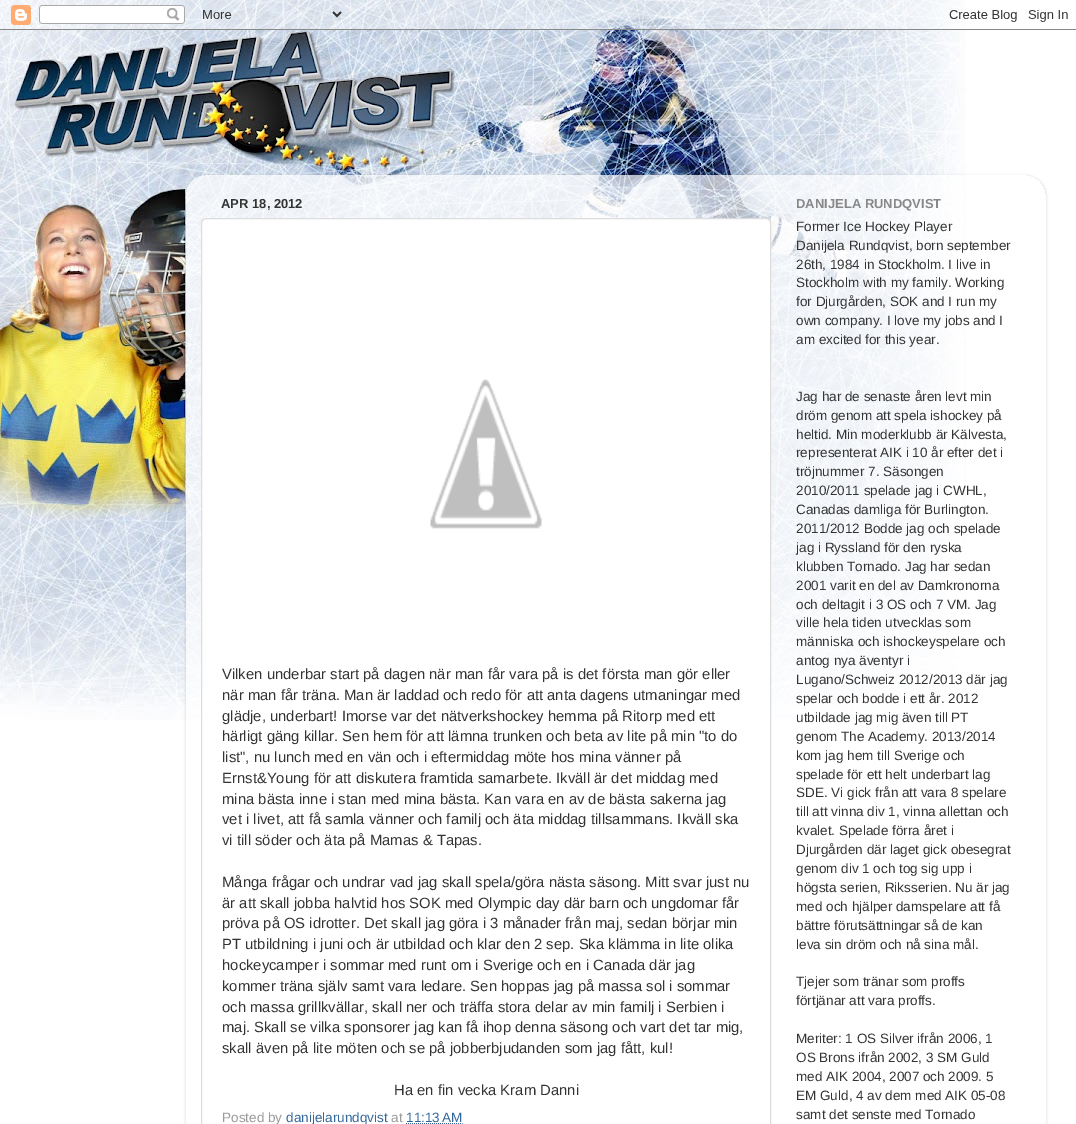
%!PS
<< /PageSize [1076 1124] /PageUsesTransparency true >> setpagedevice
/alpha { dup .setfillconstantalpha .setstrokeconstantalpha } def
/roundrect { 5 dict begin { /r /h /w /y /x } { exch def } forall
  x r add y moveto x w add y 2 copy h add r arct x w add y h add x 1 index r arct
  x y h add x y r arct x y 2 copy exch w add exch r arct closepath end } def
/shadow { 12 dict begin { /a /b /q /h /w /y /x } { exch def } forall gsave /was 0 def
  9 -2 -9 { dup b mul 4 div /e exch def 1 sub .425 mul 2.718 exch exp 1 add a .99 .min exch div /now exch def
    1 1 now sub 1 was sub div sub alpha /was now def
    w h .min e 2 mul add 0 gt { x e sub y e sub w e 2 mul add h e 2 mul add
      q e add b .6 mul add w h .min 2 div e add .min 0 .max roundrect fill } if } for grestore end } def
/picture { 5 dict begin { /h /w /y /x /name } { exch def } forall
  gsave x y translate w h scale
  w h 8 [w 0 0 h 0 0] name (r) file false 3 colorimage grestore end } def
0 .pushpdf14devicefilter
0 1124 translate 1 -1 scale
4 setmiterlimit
1 setgray
0 0 1076 1124 rectfill
(img1.rgb) 0 0 966 720 picture
(img2.rgb) 0 0 1076 30 picture
gsave
newpath 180 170 moveto 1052 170 lineto 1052 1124 lineto 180 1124 lineto closepath 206 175 moveto 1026 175 lineto 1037 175 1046 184 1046 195 curveto 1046 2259 lineto 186 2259 lineto 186 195 lineto 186 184 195 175 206 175 curveto closepath eoclip newpath
0 setgray
186 176 860 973 20 1.5 0.15 shadow
grestore
(img3.rgb) 186 175 778 539 picture
/LiberationSans-Bold [13 0 0 -13 0 0] selectfont
0.2 setgray
221 208 moveto (APR 18, 2012) show
1 setgray
201.5 218.5 569 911 4.5 roundrect gsave fill grestore
0.867 setgray
stroke
(img4.rgb) 430 379 112 150 picture
/LiberationSans-Regular [14.85 0 0 -14.85 0 0] selectfont
0.2 setgray
222 679 moveto (Vilken underbar start på dagen när man får vara på is det första man gör eller) show
222 700 moveto (när man får träna. Man är laddad och redo för att anta dagens utmaningar med) show
222 721 moveto (glädje, underbart! Imorse var det nätverkshockey hemma på Ritorp med ett) show
222 741 moveto (härligt gäng killar. Sen hem för att lämna trunken och beta av lite på min "to do) show
222 762 moveto (list", nu lunch med en vän och i eftermiddag möte hos mina vänner på) show
222 783 moveto (Ernst&Young för att diskutera framtida samarbete. Ikväll är det middag med) show
222 804 moveto (mina bästa inne i stan med mina bästa. Kan vara en av de bästa sakerna jag) show
222 824 moveto (vet i livet, att få samla vänner och familj och äta middag tillsammans. Ikväll ska) show
222 845 moveto (vi till söder och äta på Mamas & Tapas.) show
222 887 moveto (Många frågar och undrar vad jag skall spela/göra nästa säsong. Mitt svar just nu) show
222 908 moveto (är att skall jobba halvtid hos SOK med Olympic day där barn och ungdomar får) show
222 928 moveto (pröva på OS idrotter. Det skall jag göra i 3 månader från maj, sedan börjar min) show
222 949 moveto (PT utbildning i juni och är utbildad och klar den 2 sep. Ska klämma in lite olika) show
222 970 moveto (hockeycamper i sommar med runt om i Sverige och en i Canada där jag) show
222 991 moveto (kommer träna själv samt vara ledare. Sen hoppas jag på massa sol i sommar) show
222 1012 moveto (och massa grillkvällar, skall ner och träffa stora delar av min familj i Serbien i) show
222 1032 moveto (maj. Skall se vilka sponsorer jag kan få ihop denna säsong och vart det tar mig,) show
222 1053 moveto (skall även på lite möten och se på jobberbjudanden som jag fått, kul!) show
394 1095 moveto (Ha en fin vecka Kram Danni) show
/LiberationSans-Regular [13.5 0 0 -13.5 0 0] selectfont
0.6 setgray
222 1122 moveto (Posted by) show
0.2 0.4 0.6 setrgbcolor
286 1122 moveto (danijelarundqvist) show
0.6 setgray
391 1122 moveto (at) show
0.2 0.4 0.6 setrgbcolor
406 1122 moveto (11:13 AM) show
[1 1] 0 setdash
newpath 406 1123.5 moveto 462.5 1123.5 lineto stroke
/LiberationSans-Bold [13 0 0 -13 0 0] selectfont
0.533 setgray
796 208 moveto (DANIJELA RUNDQVIST) show
/LiberationSans-Regular [13.5 0 0 -13.5 0 0] selectfont
0.2 setgray
796 231 moveto (Former Ice Hockey Player) show
796 250 moveto (Danijela Rundqvist, born september) show
796 269 moveto (26th, 1984 in Stockholm. I live in) show
796 287 moveto (Stockholm with my family. Working) show
796 306 moveto (for Djurgården, SOK and I run my) show
796 325 moveto (own company. I love my jobs and I) show
796 344 moveto (am excited for this year.) show
796 401 moveto (Jag har de senaste åren levt min) show
796 420 moveto (dröm genom att spela ishockey på) show
796 439 moveto (heltid. Min moderklubb är Kälvesta,) show
796 457 moveto (representerat AIK i 10 år efter det i) show
796 476 moveto (tröjnummer 7. Säsongen) show
796 495 moveto (2010/2011 spelade jag i CWHL,) show
796 514 moveto (Canadas damliga för Burlington.) show
796 533 moveto (2011/2012 Bodde jag och spelade) show
796 552 moveto (jag i Ryssland för den ryska) show
796 571 moveto (klubben Tornado. Jag har sedan) show
796 590 moveto (2001 varit en del av Damkronorna) show
796 609 moveto (och deltagit i 3 OS och 7 VM. Jag) show
796 627 moveto (ville hela tiden utvecklas som) show
796 646 moveto (människa och ishockeyspelare och) show
796 665 moveto (antog nya äventyr i) show
796 684 moveto (Lugano/Schweiz 2012/2013 där jag) show
796 703 moveto (spelar och bodde i ett år. 2012) show
796 722 moveto (utbildade jag mig även till PT) show
796 741 moveto (genom The Academy. 2013/2014) show
796 760 moveto (kom jag hem till Sverige och) show
796 779 moveto (spelade för ett helt underbart lag) show
796 797 moveto (SDE. Vi gick från att vara 8 spelare) show
796 816 moveto (till att vinna div 1, vinna allettan och) show
796 835 moveto (kvalet. Spelade förra året i) show
796 854 moveto (Djurgården där laget gick obesegrat) show
796 873 moveto (genom div 1 och tog sig upp i) show
796 892 moveto (högsta serien, Riksserien. Nu är jag) show
796 911 moveto (med och hjälper damspelare att få) show
796 930 moveto (bättre förutsättningar så de kan) show
796 949 moveto (leva sin dröm och nå sina mål.) show
796 986 moveto (Tjejer som tränar som proffs) show
796 1005 moveto (förtjänar att vara proffs.) show
796 1043 moveto (Meriter: 1 OS Silver ifrån 2006, 1) show
796 1062 moveto (OS Brons ifrån 2002, 3 SM Guld) show
796 1081 moveto (med AIK 2004, 2007 och 2009. 5) show
796 1100 moveto (EM Guld, 4 av dem med AIK 05-08) show
796 1119 moveto (samt det senste med Tornado) show
.poppdf14devicefilter showpage
